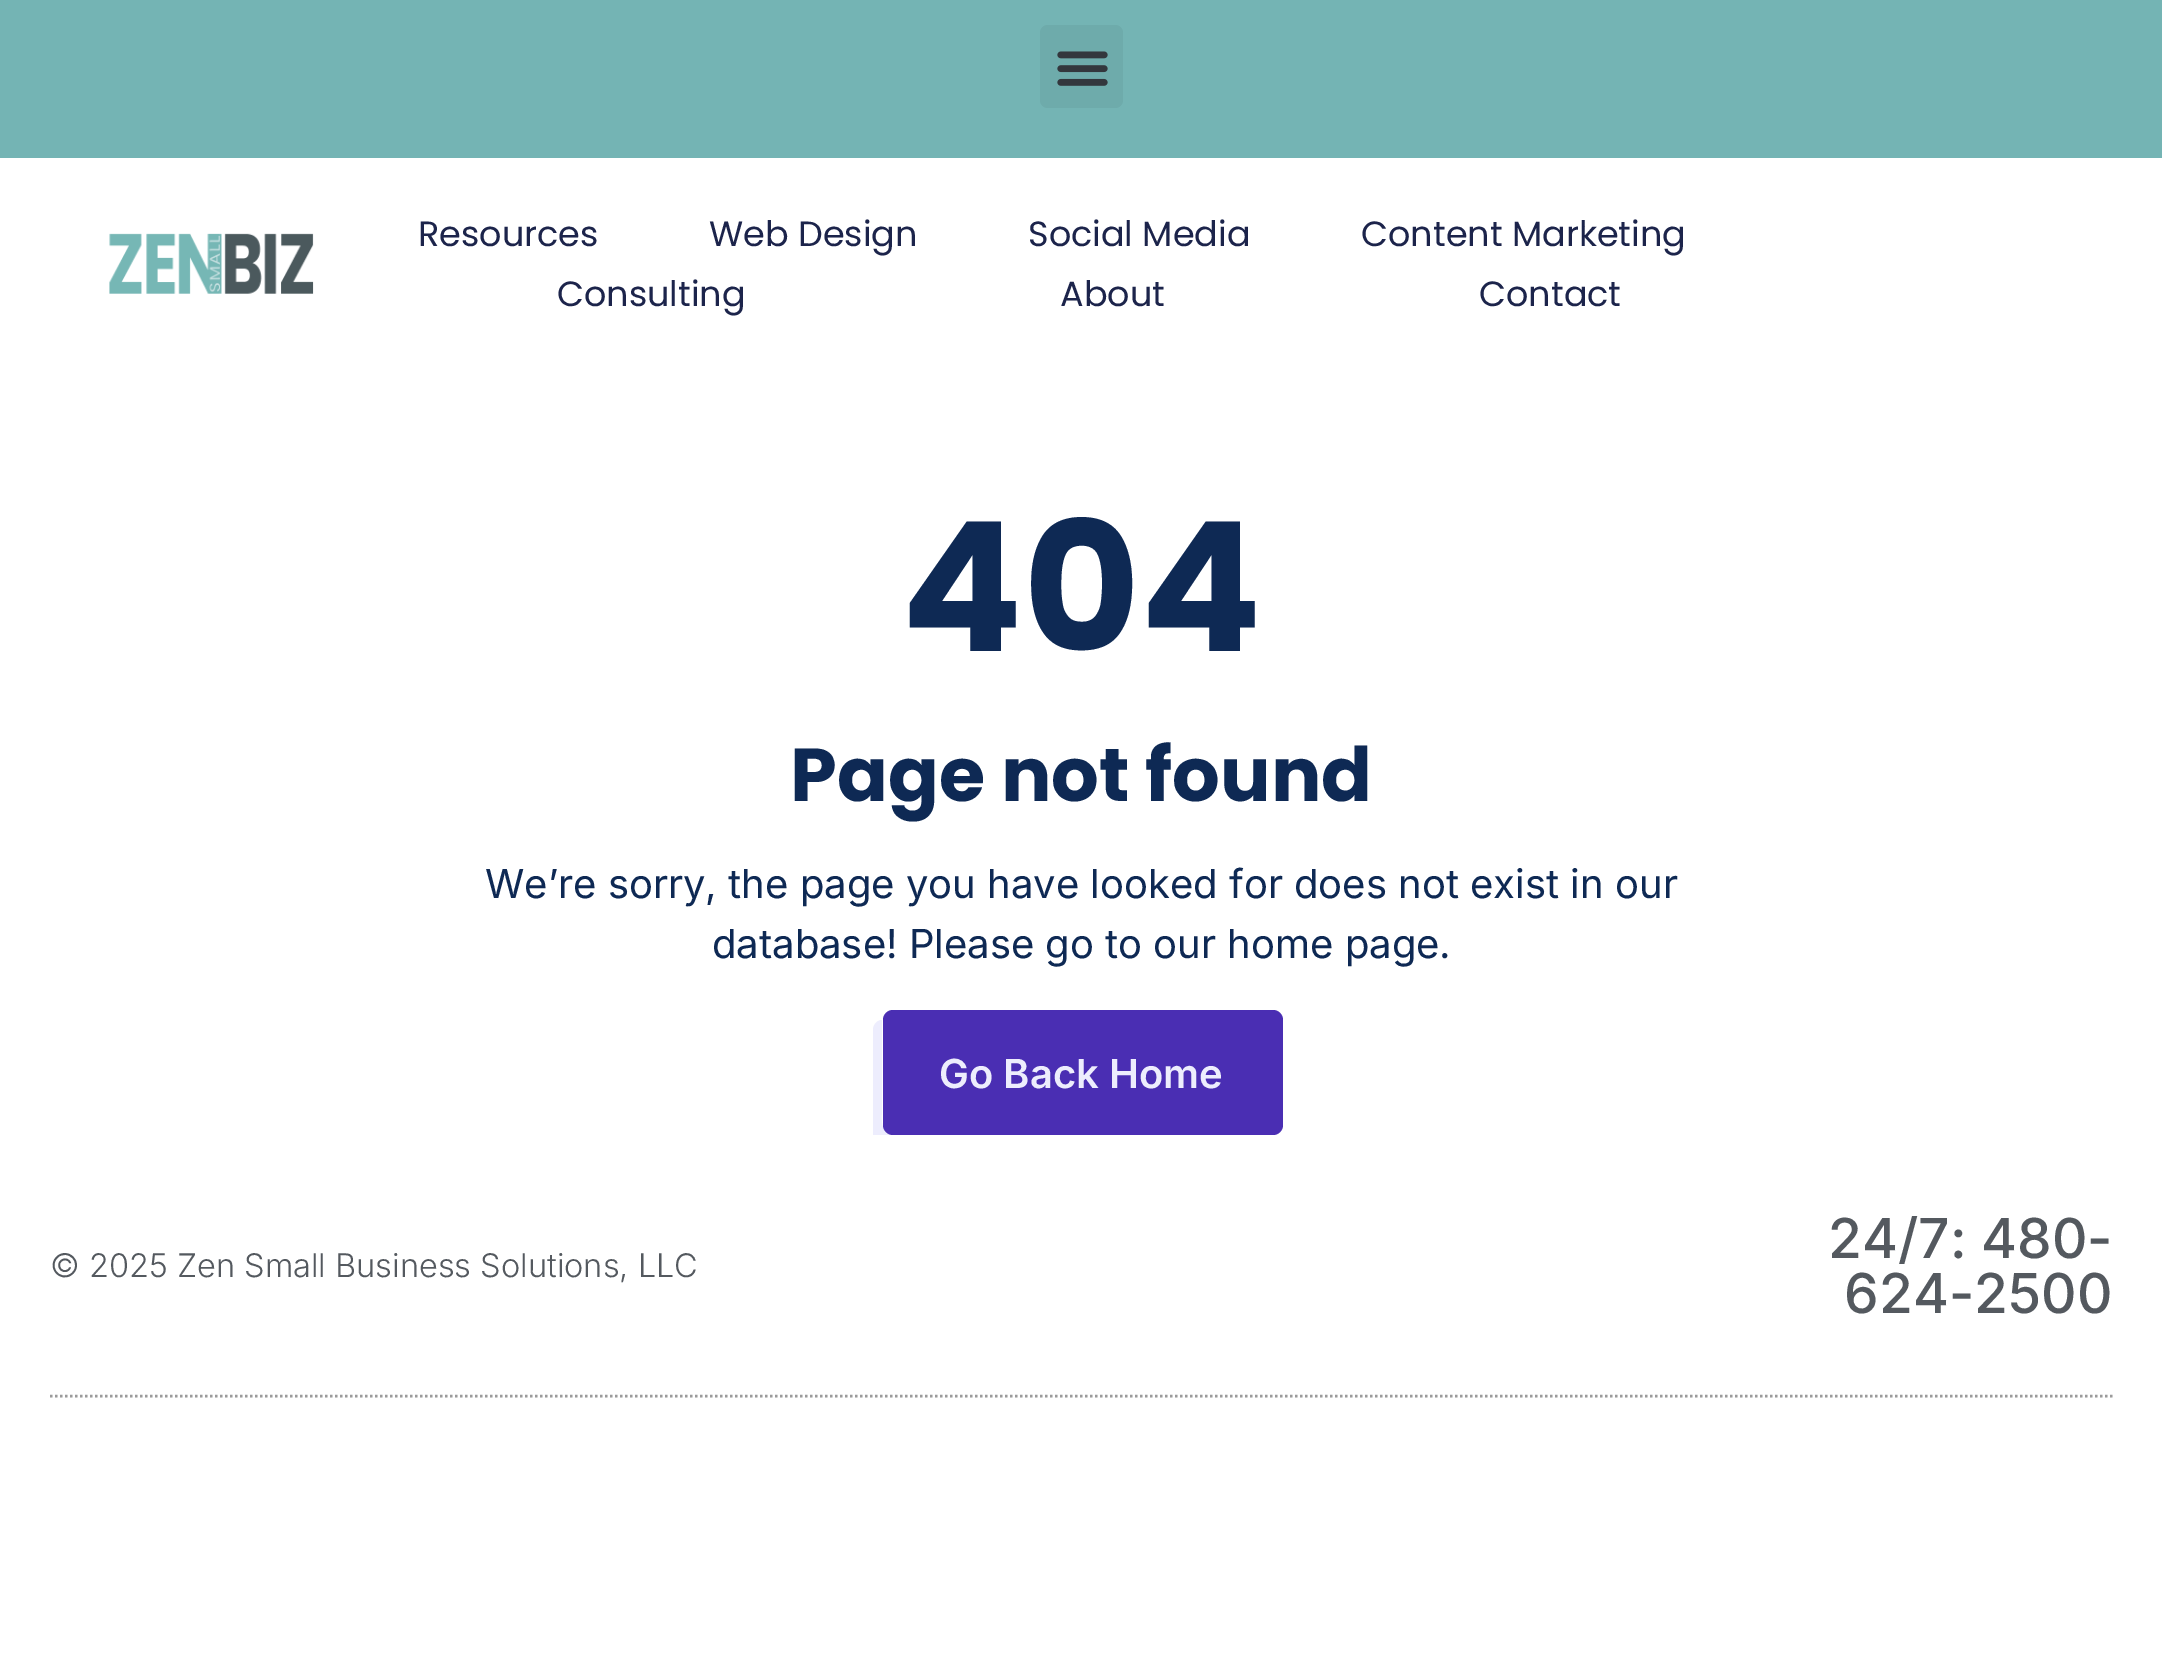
%!PS
<< /PageSize [2162 1675] >> setpagedevice
/roundrect { 5 dict begin { /r /h /w /y /x } { exch def } forall
  x r add y moveto x w add y 2 copy h add r arct x w add y h add x 1 index r arct
  x y h add x y r arct x y 2 copy exch w add exch r arct closepath end } def
/picture { 5 dict begin { /h /w /y /x /name } { exch def } forall
  gsave x y translate w h scale
  w h 8 [w 0 0 h 0 0] name (r) file false 3 colorimage grestore end } def
0 1675 translate 1 -1 scale
4 setmiterlimit
1 setgray
0 0 2162 1675 rectfill
0.455 0.706 0.706 setrgbcolor
0 0 2162 158 rectfill
0.431 0.671 0.671 setrgbcolor
1040 25 83 83 8 roundrect fill
(img1.rgb) 1057 51 51 35 picture
(img2.rgb) 109 233 205 61 picture
/Poppins-Regular [35 0 0 -35 0 0] selectfont
0.11 0.141 0.294 setrgbcolor
418 246 moveto (Resources) show
709 246 moveto (Web Design) show
1028 246 moveto (Social Media) show
1361 246 moveto (Content Marketing) show
557 306 moveto (Consulting) show
1060 306 moveto (About) show
1479 306 moveto (Contact) show
/Poppins-Bold [180 0 0 -180 0 0] selectfont
0.055 0.161 0.329 setrgbcolor
901 651 moveto (404) show
/Poppins-Bold [75 0 0 -75 0 0] selectfont
790 801 moveto (Page not found) show
/Inter-Regular [40 0 0 -40 0 0] selectfont
485 898 moveto (We’re sorry, the page you have looked for does not exist in our) show
712 958 moveto (database! Please go to our home page.) show
0.929 0.929 0.992 setrgbcolor
newpath 882 1020 moveto 877 1020 873 1025 873 1030 curveto 873 1135 lineto 873 1141 877 1145 883 1145 curveto 1263 1145 lineto 1269 1145 1273 1141 1273 1135 curveto 892 1135 lineto 879 1135 882 1115 882 1108 curveto closepath fill
0.29 0.18 0.702 setrgbcolor
883 1010 400 125 10 roundrect fill
/Inter-SemiBold [40 0 0 -40 0 0] selectfont
0.929 0.929 0.992 setrgbcolor
939 1088 moveto (Go Back Home) show
1 setgray
873 1135 400 10 rectfill
0.608 setgray
2.5 setlinewidth
[2.5 2.5] 0 setdash
newpath 50 1396 moveto 2112.5 1396 lineto stroke
/Inter-Light [32.5 0 0 -32.5 0 0] selectfont
0.329 0.349 0.373 setrgbcolor
50 1277 moveto (© 2025 Zen Small Business Solutions, LLC) show
/Inter-Medium [55 0 0 -55 0 0] selectfont
1828 1258 moveto (24/7: 480-) show
1844 1313 moveto (624-2500) show
showpage
